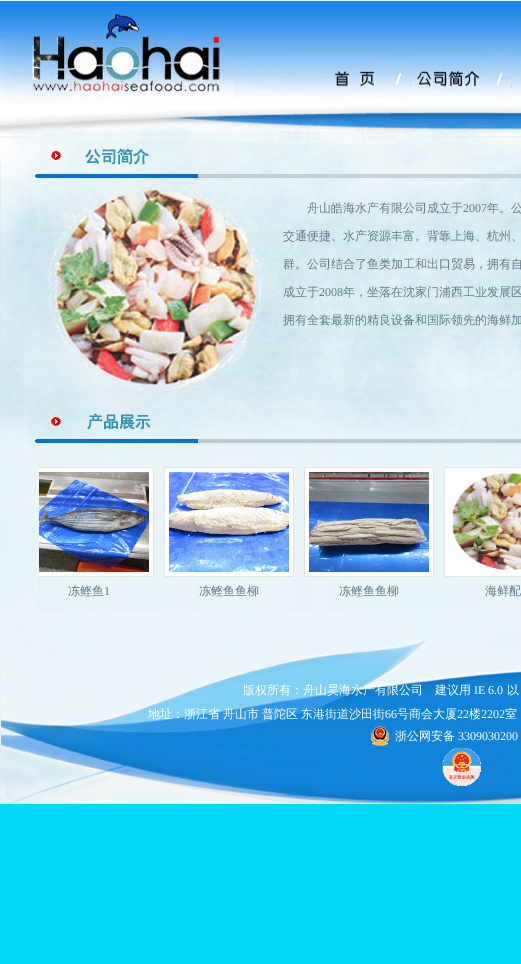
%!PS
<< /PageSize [521 964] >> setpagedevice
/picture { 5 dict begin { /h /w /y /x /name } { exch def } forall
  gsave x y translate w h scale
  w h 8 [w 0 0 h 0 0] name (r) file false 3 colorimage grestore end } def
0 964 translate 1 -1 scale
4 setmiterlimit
1 setgray
0 0 521 964 rectfill
(img1.rgb) 0 804 521 160 picture
(img2.rgb) 0 0 521 136 picture
(img3.rgb) 0 136 521 265 picture
(img4.rgb) 28 144 493 37 picture
(img5.rgb) 48 181 214 210 picture
/WenQuanYiZenHei-Medium [12 0 0 -12 0 0] selectfont
0.373 0.482 0.537 setrgbcolor
307 212 moveto (舟山皓海水产有限公司成立于) show
/LiberationSerif-Regular [12 0 0 -12 0 0] selectfont
463 212 moveto (2007) show
/WenQuanYiZenHei-Medium [12 0 0 -12 0 0] selectfont
487 212 moveto (年。公) show
283 240 moveto (交通便捷、水产资源丰富。背靠上海、杭州、) show
283 268 moveto (群。公司结合了鱼类加工和出口贸易，拥有自) show
283 296 moveto (成立于) show
/LiberationSerif-Regular [12 0 0 -12 0 0] selectfont
319 296 moveto (2008) show
/WenQuanYiZenHei-Medium [12 0 0 -12 0 0] selectfont
343 296 moveto (年，坐落在沈家门浦西工业发展区) show
283 324 moveto (拥有全套最新的精良设备和国际领先的海鲜加) show
(img6.rgb) 0 401 521 238 picture
(img7.rgb) 28 408 493 38 picture
(img8.rgb) 39 461 482 150 picture
(img9.rgb) 0 639 521 165 picture
1 setgray
243 694 moveto (版权所有：舟山昊海水产有限公司　建议用) show
/LiberationSerif-Regular [12 0 0 -12 0 0] selectfont
474 694 moveto (IE 6.0) show
/WenQuanYiZenHei-Medium [12 0 0 -12 0 0] selectfont
507 694 moveto (以) show
148 718 moveto -0.5 0 32 (地址：浙江省 舟山市 普陀区 东港街道沙田街) widthshow
/LiberationSerif-Regular [12 0 0 -12 0 0] selectfont
385 718 moveto (66) show
/WenQuanYiZenHei-Medium [12 0 0 -12 0 0] selectfont
397 718 moveto (号商会大厦) show
/LiberationSerif-Regular [12 0 0 -12 0 0] selectfont
457 718 moveto (22) show
/WenQuanYiZenHei-Medium [12 0 0 -12 0 0] selectfont
469 718 moveto (楼) show
/LiberationSerif-Regular [12 0 0 -12 0 0] selectfont
481 718 moveto (2202) show
/WenQuanYiZenHei-Medium [12 0 0 -12 0 0] selectfont
505 718 moveto (室) show
(img10.rgb) 371 726 18 20 picture
395 740 moveto (浙公网安备) show
/LiberationSerif-Regular [12 0 0 -12 0 0] selectfont
458 740 moveto (3309030200) show
(img11.rgb) 442 748 39 38 picture
showpage
